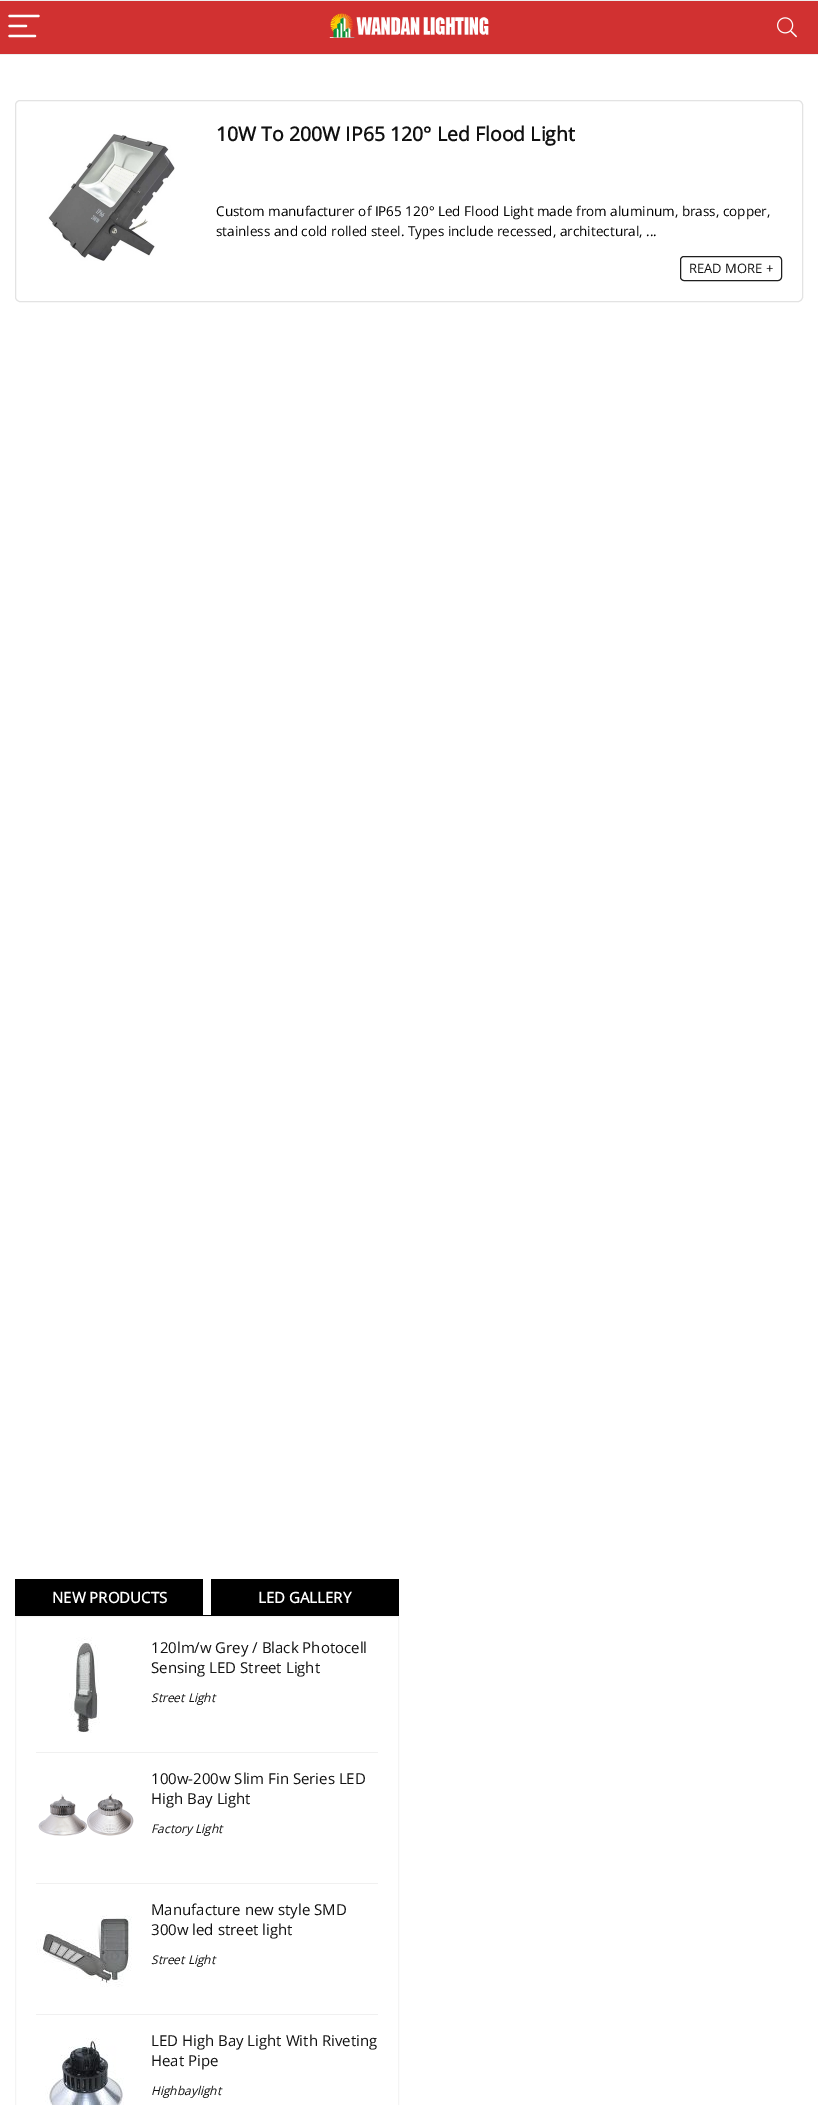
%!PS
<< /PageSize [818 2105] >> setpagedevice
/roundrect { 5 dict begin { /r /h /w /y /x } { exch def } forall
  x r add y moveto x w add y 2 copy h add r arct x w add y h add x 1 index r arct
  x y h add x y r arct x y 2 copy exch w add exch r arct closepath end } def
/picture { 5 dict begin { /h /w /y /x /name } { exch def } forall
  gsave x y translate w h scale
  w h 8 [w 0 0 h 0 0] name (r) file false 3 colorimage grestore end } def
0 2105 translate 1 -1 scale
4 setmiterlimit
1 setgray
0 0 818 2105 rectfill
0.82 0.192 0.192 setrgbcolor
0 1 818 53 rectfill
0.933 setgray
0 0 818 1 rectfill
0 54 818 1 rectfill
1 setgray
2.2 setlinewidth
1 setlinecap
newpath 9.5 16 moveto 38.5 16 lineto 9.5 26 moveto 26 26 lineto 9.5 36 moveto 35 36 lineto stroke
(img1.rgb) 329 13 160 25 picture
(img2.rgb) 777 17 20 21 picture
0.89 setgray
1 setlinewidth
0 setlinecap
15.5 100.5 787 201 4.5 roundrect stroke
(img3.rgb) 48 134 127 127 picture
/OpenSans-Bold [19.5 0 0 -19.5 0 0] selectfont
0.067 setgray
216 141 moveto (10W To 200W IP65 120° Led Flood Light) show
/OpenSans-Regular [13.5 0 0 -13.5 0 0] selectfont
0 setgray
216 216 moveto (Custom manufacturer of IP65 120° Led Flood Light made from aluminum, brass, copper,) show
216 236 moveto (stainless and cold rolled steel. Types include recessed, architectural, ...) show
0.118 setgray
680.5 256.5 101 24 3.5 roundrect stroke
/OpenSans-Regular [13 0 0 -13 0 0] selectfont
0.067 setgray
689 273 moveto (READ MORE +) show
0 setgray
15 1615 384 1 rectfill
15 1579 188 36 rectfill
/OpenSans-Bold [15 0 0 -15 0 0] selectfont
1 setgray
52 1603 moveto (NEW PRODUCTS) show
0 setgray
211 1579 188 36 rectfill
1 setgray
258 1603 moveto (LED GALLERY) show
0.957 setgray
15.5 1616.5 383 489 rectstroke
0.941 setgray
36 1752 342 1 rectfill
(img4.rgb) 69 1637 31 96 picture
/OpenSans-Regular [15 0 0 -15 0 0] selectfont
0.067 setgray
151 1653 moveto (120lm/w Grey / Black Photocell) show
151 1673 moveto (Sensing LED Street Light) show
/OpenSans-Italic [12 0 0 -12 0 0] selectfont
151 1702 moveto (Street Light) show
0.941 setgray
36 1883 342 1 rectfill
(img5.rgb) 38 1793 96 43 picture
/OpenSans-Regular [15 0 0 -15 0 0] selectfont
0.067 setgray
151 1784 moveto (100w-200w Slim Fin Series LED) show
151 1804 moveto (High Bay Light) show
/OpenSans-Italic [12 0 0 -12 0 0] selectfont
151 1833 moveto (Factory Light) show
0.941 setgray
36 2014 342 1 rectfill
(img6.rgb) 36 1915 96 72 picture
/OpenSans-Regular [15 0 0 -15 0 0] selectfont
0.067 setgray
151 1915 moveto (Manufacture new style SMD) show
151 1935 moveto (300w led street light) show
/OpenSans-Italic [12 0 0 -12 0 0] selectfont
151 1964 moveto (Street Light) show
(img7.rgb) 45 2038 79 67 picture
/OpenSans-Regular [15 0 0 -15 0 0] selectfont
151 2046 moveto (LED High Bay Light With Riveting) show
151 2066 moveto (Heat Pipe) show
/OpenSans-Italic [12 0 0 -12 0 0] selectfont
151 2095 moveto (Highbaylight) show
showpage
